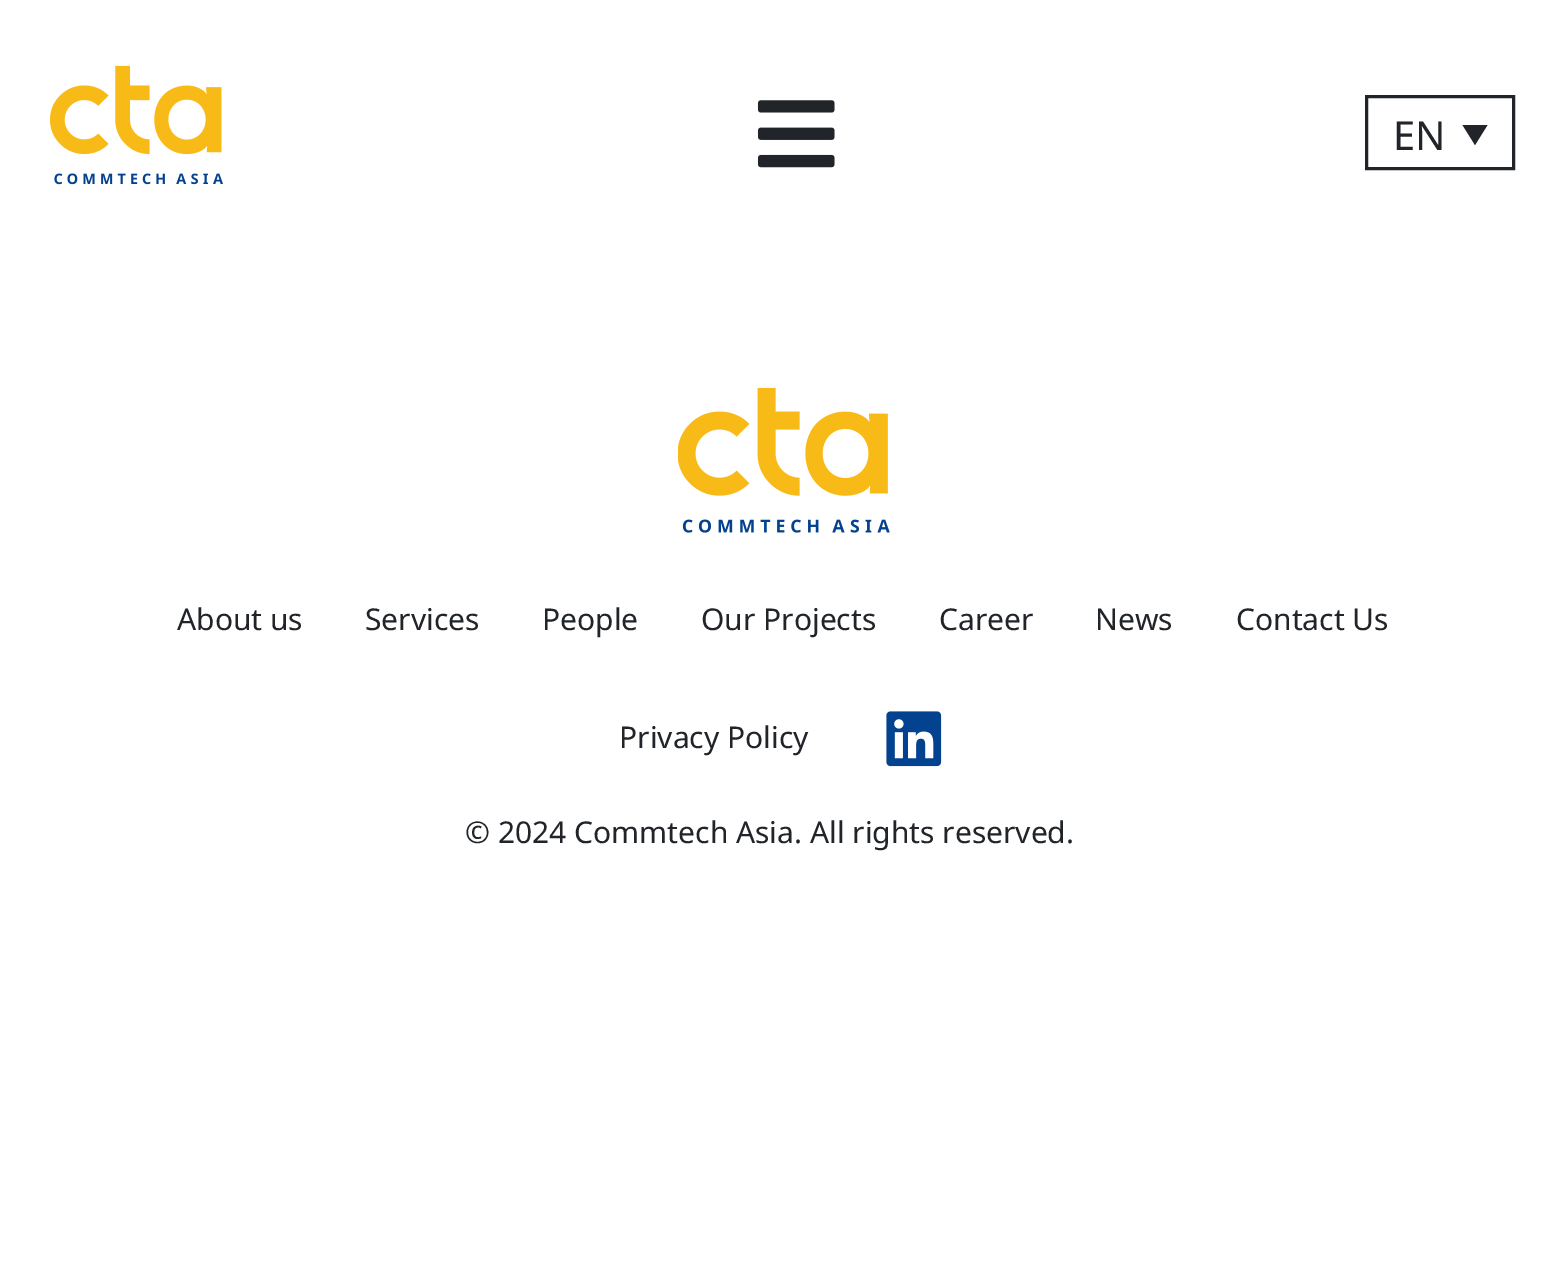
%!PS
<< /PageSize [1564 1265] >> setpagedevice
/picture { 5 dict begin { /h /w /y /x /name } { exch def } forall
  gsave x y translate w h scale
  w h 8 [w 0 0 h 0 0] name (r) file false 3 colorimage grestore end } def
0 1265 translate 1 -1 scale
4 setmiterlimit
1 setgray
0 0 1564 1265 rectfill
(img1.rgb) 50 65 173 120 picture
(img2.rgb) 757 100 78 68 picture
0.129 0.145 0.161 setrgbcolor
3 setlinewidth
1366.5 96.5 147 72 rectstroke
/NotoSans-Regular [40 0 0 -40 0 0] selectfont
1393 150 moveto (EN) show
newpath 1462.5 125 moveto 1487.5 125 lineto 1475 145 lineto closepath fill
(img3.rgb) 678 388 212 145 picture
/NotoSans-Regular [30 0 0 -30 0 0] selectfont
177 630 moveto (About us) show
365 630 moveto (Services) show
542 630 moveto (People) show
701 630 moveto (Our Projects) show
939 630 moveto (Career) show
1095 630 moveto (News) show
1236 630 moveto (Contact Us) show
619 748 moveto (Privacy Policy) show
(img4.rgb) 886 711 56 56 picture
465 843 moveto (© 2024 Commtech Asia. All rights reserved.) show
showpage
